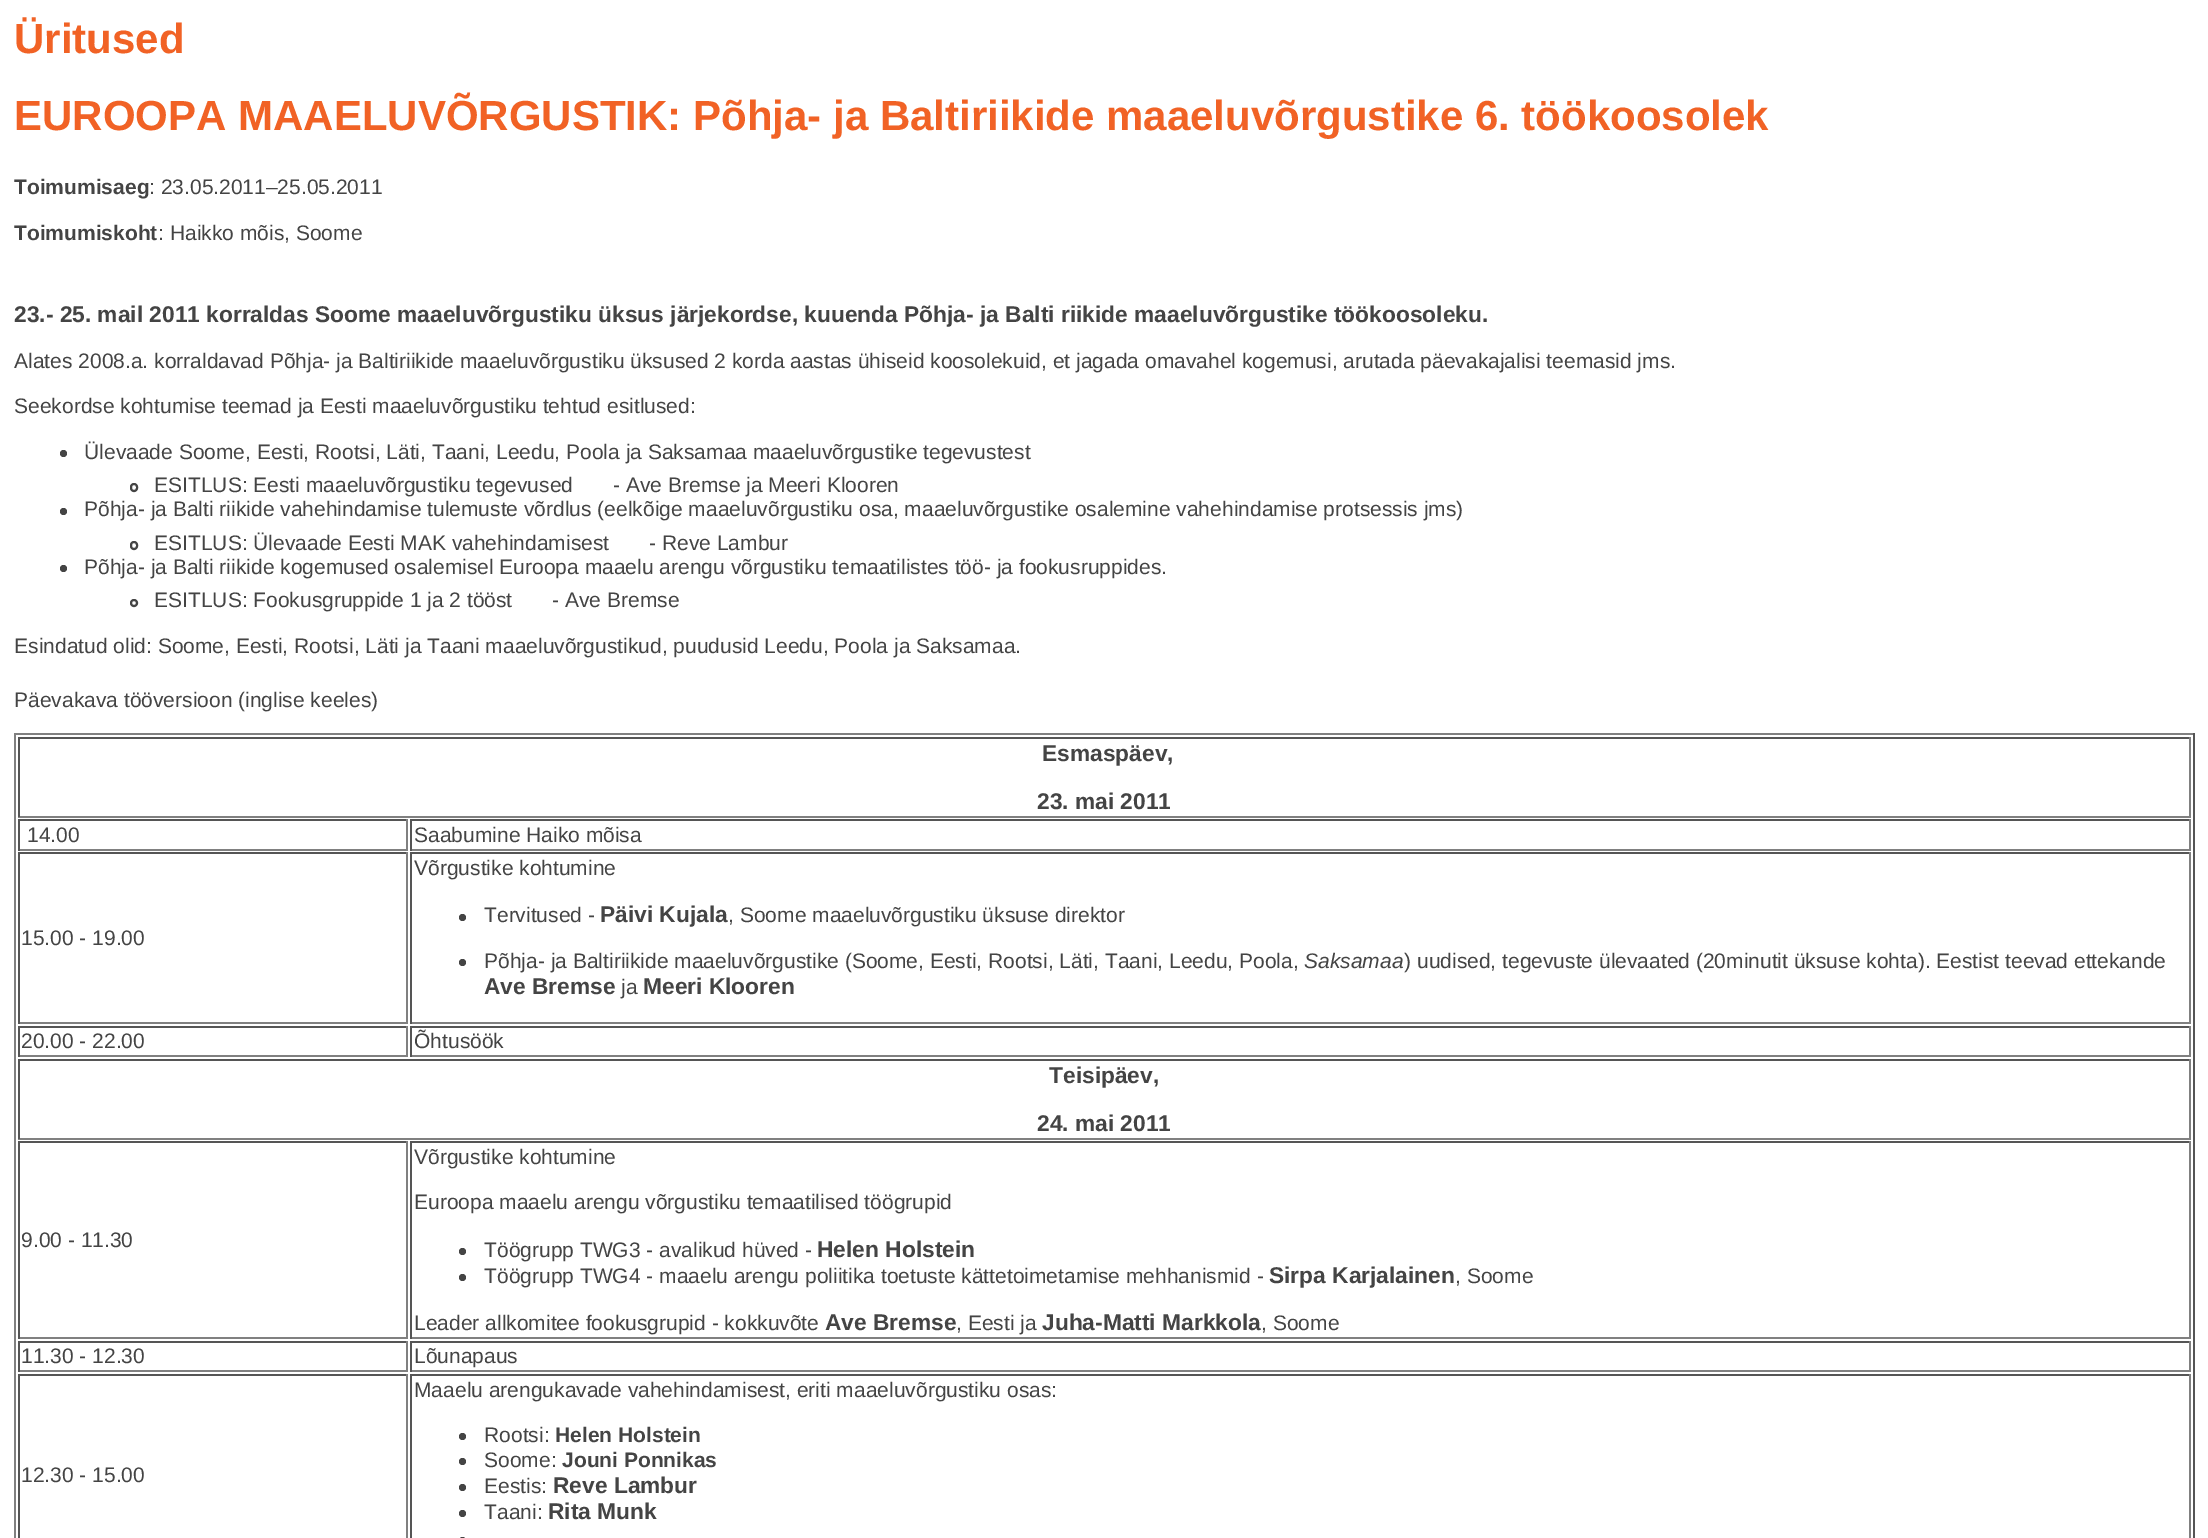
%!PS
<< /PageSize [2208 1538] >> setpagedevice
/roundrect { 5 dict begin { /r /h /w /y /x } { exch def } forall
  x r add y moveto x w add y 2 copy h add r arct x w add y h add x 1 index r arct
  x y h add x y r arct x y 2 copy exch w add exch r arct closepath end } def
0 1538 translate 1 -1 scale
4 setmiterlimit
1 setgray
0 0 2208 1538 rectfill
/LiberationSans-Bold [42 0 0 -42 0 0] selectfont
0.945 0.384 0.145 setrgbcolor
14 53 moveto (Üritused) show
14 130 moveto (EUROOPA MAAELUVÕRGUSTIK: Põhja- ja Baltiriikide maaeluvõrgustike 6. töökoosolek) show
/LiberationSans-Bold [21 0 0 -21 0 0] selectfont
0.267 setgray
14 194 moveto (Toimumisaeg) show
/LiberationSans-Regular [21 0 0 -21 0 0] selectfont
149 194 moveto (: 23.05.2011–25.05.2011) show
/LiberationSans-Bold [21 0 0 -21 0 0] selectfont
14 240 moveto (Toimumiskoht) show
/LiberationSans-Regular [21 0 0 -21 0 0] selectfont
158 240 moveto (: Haikko mõis, Soome) show
/LiberationSans-Bold [22.75 0 0 -22.75 0 0] selectfont
14 322 moveto (23.- 25. mail 2011 korraldas Soome maaeluvõrgustiku üksus järjekordse, kuuenda Põhja- ja Balti riikide maaeluvõrgustike töökoosoleku.) show
/LiberationSans-Regular [21 0 0 -21 0 0] selectfont
14 368 moveto (Alates 2008.a. korraldavad Põhja- ja Baltiriikide maaeluvõrgustiku üksused 2 korda aastas ühiseid koosolekuid, et jagada omavahel kogemusi, arutada päevakajalisi teemasid jms.) show
14 413 moveto (Seekordse kohtumise teemad ja Eesti maaeluvõrgustiku tehtud esitlused:) show
newpath 63.5 453.5 3.5 0 360 arc closepath fill
84 459 moveto (Ülevaade Soome, Eesti, Rootsi, Läti, Taani, Leedu, Poola ja Saksamaa maaeluvõrgustike tegevustest) show
2 setlinewidth
131 484 6 7 3 roundrect stroke
154 492 moveto (ESITLUS: Eesti maaeluvõrgustiku tegevused) show
613 492 moveto (- Ave Bremse ja Meeri Klooren) show
newpath 63.5 511.5 3.5 0 360 arc closepath fill
84 516 moveto (Põhja- ja Balti riikide vahehindamise tulemuste võrdlus \(eelkõige maaeluvõrgustiku osa, maaeluvõrgustike osalemine vahehindamise protsessis jms\)) show
131 542 6 7 3 roundrect stroke
154 550 moveto (ESITLUS: Ülevaade Eesti MAK vahehindamisest) show
649 550 moveto (- Reve Lambur) show
newpath 63.5 568.5 3.5 0 360 arc closepath fill
84 574 moveto (Põhja- ja Balti riikide kogemused osalemisel Euroopa maaelu arengu võrgustiku temaatilistes töö- ja fookusruppides.) show
newpath 134 603 3 0 360 arc closepath stroke
154 607 moveto (ESITLUS: Fookusgruppide 1 ja 2 tööst) show
552 607 moveto (- Ave Bremse) show
14 653 moveto (Esindatud olid: Soome, Eesti, Rootsi, Läti ja Taani maaeluvõrgustikud, puudusid Leedu, Poola ja Saksamaa.) show
14 707 moveto (Päevakava tööversioon \(inglise keeles\)) show
0.502 setgray
14 733 2181 2 rectfill
0.333 setgray
2193 733 2 805 rectfill
0.502 setgray
14 733 2 805 rectfill
0.333 setgray
18 737 2173 2 rectfill
0.502 setgray
2189 737 2 80 rectfill
18 816 2173 2 rectfill
0.333 setgray
18 737 2 80 rectfill
/LiberationSans-Bold [22.75 0 0 -22.75 0 0] selectfont
0.267 setgray
1042 761 moveto (Esmaspäev,) show
1037 809 moveto (23. mai 2011) show
0.333 setgray
18 819 390 2 rectfill
0.502 setgray
406 819 2 32 rectfill
18 849 390 2 rectfill
0.333 setgray
18 819 2 32 rectfill
/LiberationSans-Regular [21 0 0 -21 0 0] selectfont
0.267 setgray
27 842 moveto (14.00) show
0.333 setgray
410 819 1781 2 rectfill
0.502 setgray
2189 819 2 32 rectfill
410 849 1781 2 rectfill
0.333 setgray
410 819 2 32 rectfill
0.267 setgray
414 842 moveto (Saabumine Haiko mõisa) show
0.333 setgray
18 852 390 2 rectfill
0.502 setgray
406 852 2 172 rectfill
18 1022 390 2 rectfill
0.333 setgray
18 852 2 172 rectfill
0.267 setgray
21 945 moveto (15.00 - 19.00) show
0.333 setgray
410 852 1781 2 rectfill
0.502 setgray
2189 852 2 172 rectfill
410 1022 1781 2 rectfill
0.333 setgray
410 852 2 172 rectfill
0.267 setgray
414 875 moveto (Võrgustike kohtumine) show
newpath 462.5 917.5 3.5 0 360 arc closepath fill
484 922 moveto (Tervitused -) show
/LiberationSans-Bold [22.75 0 0 -22.75 0 0] selectfont
600 922 moveto (Päivi Kujala) show
/LiberationSans-Regular [21 0 0 -21 0 0] selectfont
728 922 moveto (, Soome maaeluvõrgustiku üksuse direktor) show
newpath 462.5 962.5 3.5 0 360 arc closepath fill
484 968 moveto (Põhja- ja Baltiriikide maaeluvõrgustike \(Soome, Eesti, Rootsi, Läti, Taani, Leedu, Poola,) show
/LiberationSans-Italic [21 0 0 -21 0 0] selectfont
1304 968 moveto (Saksamaa) show
/LiberationSans-Regular [21 0 0 -21 0 0] selectfont
1404 968 moveto (\) uudised, tegevuste ülevaated \(20minutit üksuse kohta\). Eestist teevad ettekande) show
/LiberationSans-Bold [22.75 0 0 -22.75 0 0] selectfont
484 994 moveto (Ave Bremse) show
/LiberationSans-Regular [21 0 0 -21 0 0] selectfont
621 994 moveto (ja) show
/LiberationSans-Bold [22.75 0 0 -22.75 0 0] selectfont
643 994 moveto (Meeri Klooren) show
0.333 setgray
18 1026 390 2 rectfill
0.502 setgray
406 1026 2 31 rectfill
18 1055 390 2 rectfill
0.333 setgray
18 1026 2 31 rectfill
/LiberationSans-Regular [21 0 0 -21 0 0] selectfont
0.267 setgray
21 1048 moveto (20.00 - 22.00) show
0.333 setgray
410 1026 1781 2 rectfill
0.502 setgray
2189 1026 2 31 rectfill
410 1055 1781 2 rectfill
0.333 setgray
410 1026 2 31 rectfill
0.267 setgray
414 1048 moveto (Õhtusöök) show
0.333 setgray
18 1059 2173 2 rectfill
0.502 setgray
2189 1059 2 80 rectfill
18 1138 2173 2 rectfill
0.333 setgray
18 1059 2 80 rectfill
/LiberationSans-Bold [22.75 0 0 -22.75 0 0] selectfont
0.267 setgray
1049 1083 moveto (Teisipäev,) show
1037 1131 moveto (24. mai 2011) show
0.333 setgray
18 1141 390 2 rectfill
0.502 setgray
406 1141 2 198 rectfill
18 1337 390 2 rectfill
0.333 setgray
18 1141 2 198 rectfill
/LiberationSans-Regular [21 0 0 -21 0 0] selectfont
0.267 setgray
21 1247 moveto (9.00 - 11.30) show
0.333 setgray
410 1141 1781 2 rectfill
0.502 setgray
2189 1141 2 198 rectfill
410 1337 1781 2 rectfill
0.333 setgray
410 1141 2 198 rectfill
0.267 setgray
414 1164 moveto (Võrgustike kohtumine) show
414 1209 moveto (Euroopa maaelu arengu võrgustiku temaatilised töögrupid) show
newpath 462.5 1251.5 3.5 0 360 arc closepath fill
484 1257 moveto (Töögrupp TWG3 - avalikud hüved -) show
/LiberationSans-Bold [22.75 0 0 -22.75 0 0] selectfont
817 1257 moveto (Helen Holstein) show
newpath 462.5 1277.5 3.5 0 360 arc closepath fill
/LiberationSans-Regular [21 0 0 -21 0 0] selectfont
484 1283 moveto (Töögrupp TWG4 - maaelu arengu poliitika toetuste kättetoimetamise mehhanismid -) show
/LiberationSans-Bold [22.75 0 0 -22.75 0 0] selectfont
1269 1283 moveto (Sirpa Karjalainen) show
/LiberationSans-Regular [21 0 0 -21 0 0] selectfont
1455 1283 moveto (, Soome) show
414 1330 moveto (Leader allkomitee fookusgrupid - kokkuvõte) show
/LiberationSans-Bold [22.75 0 0 -22.75 0 0] selectfont
825 1330 moveto (Ave Bremse) show
/LiberationSans-Regular [21 0 0 -21 0 0] selectfont
956 1330 moveto (, Eesti ja) show
/LiberationSans-Bold [22.75 0 0 -22.75 0 0] selectfont
1042 1330 moveto (Juha-Matti Markkola) show
/LiberationSans-Regular [21 0 0 -21 0 0] selectfont
1261 1330 moveto (, Soome) show
0.333 setgray
18 1341 390 2 rectfill
0.502 setgray
406 1341 2 31 rectfill
18 1370 390 2 rectfill
0.333 setgray
18 1341 2 31 rectfill
0.267 setgray
21 1363 moveto (11.30 - 12.30) show
0.333 setgray
410 1341 1781 2 rectfill
0.502 setgray
2189 1341 2 31 rectfill
410 1370 1781 2 rectfill
0.333 setgray
410 1341 2 31 rectfill
0.267 setgray
414 1363 moveto (Lõunapaus) show
0.333 setgray
18 1374 390 2 rectfill
0.502 setgray
406 1374 2 164 rectfill
0.333 setgray
18 1374 2 164 rectfill
0.267 setgray
21 1482 moveto (12.30 - 15.00) show
0.333 setgray
410 1374 1781 2 rectfill
0.502 setgray
2189 1374 2 164 rectfill
0.333 setgray
410 1374 2 164 rectfill
0.267 setgray
414 1397 moveto (Maaelu arengukavade vahehindamisest, eriti maaeluvõrgustiku osas:) show
newpath 462.5 1436.5 3.5 0 360 arc closepath fill
484 1442 moveto (Rootsi:) show
/LiberationSans-Bold [21 0 0 -21 0 0] selectfont
555 1442 moveto (Helen Holstein) show
newpath 462.5 1461.5 3.5 0 360 arc closepath fill
/LiberationSans-Regular [21 0 0 -21 0 0] selectfont
484 1467 moveto (Soome:) show
/LiberationSans-Bold [21 0 0 -21 0 0] selectfont
562 1467 moveto (Jouni Ponnikas) show
newpath 462.5 1487.5 3.5 0 360 arc closepath fill
/LiberationSans-Regular [21 0 0 -21 0 0] selectfont
484 1493 moveto (Eestis:) show
/LiberationSans-Bold [22.75 0 0 -22.75 0 0] selectfont
553 1493 moveto (Reve Lambur) show
newpath 462.5 1513.5 3.5 0 360 arc closepath fill
/LiberationSans-Regular [21 0 0 -21 0 0] selectfont
484 1519 moveto (Taani:) show
/LiberationSans-Bold [22.75 0 0 -22.75 0 0] selectfont
548 1519 moveto (Rita Munk) show
459 1537 7 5 3.5 roundrect fill
showpage
